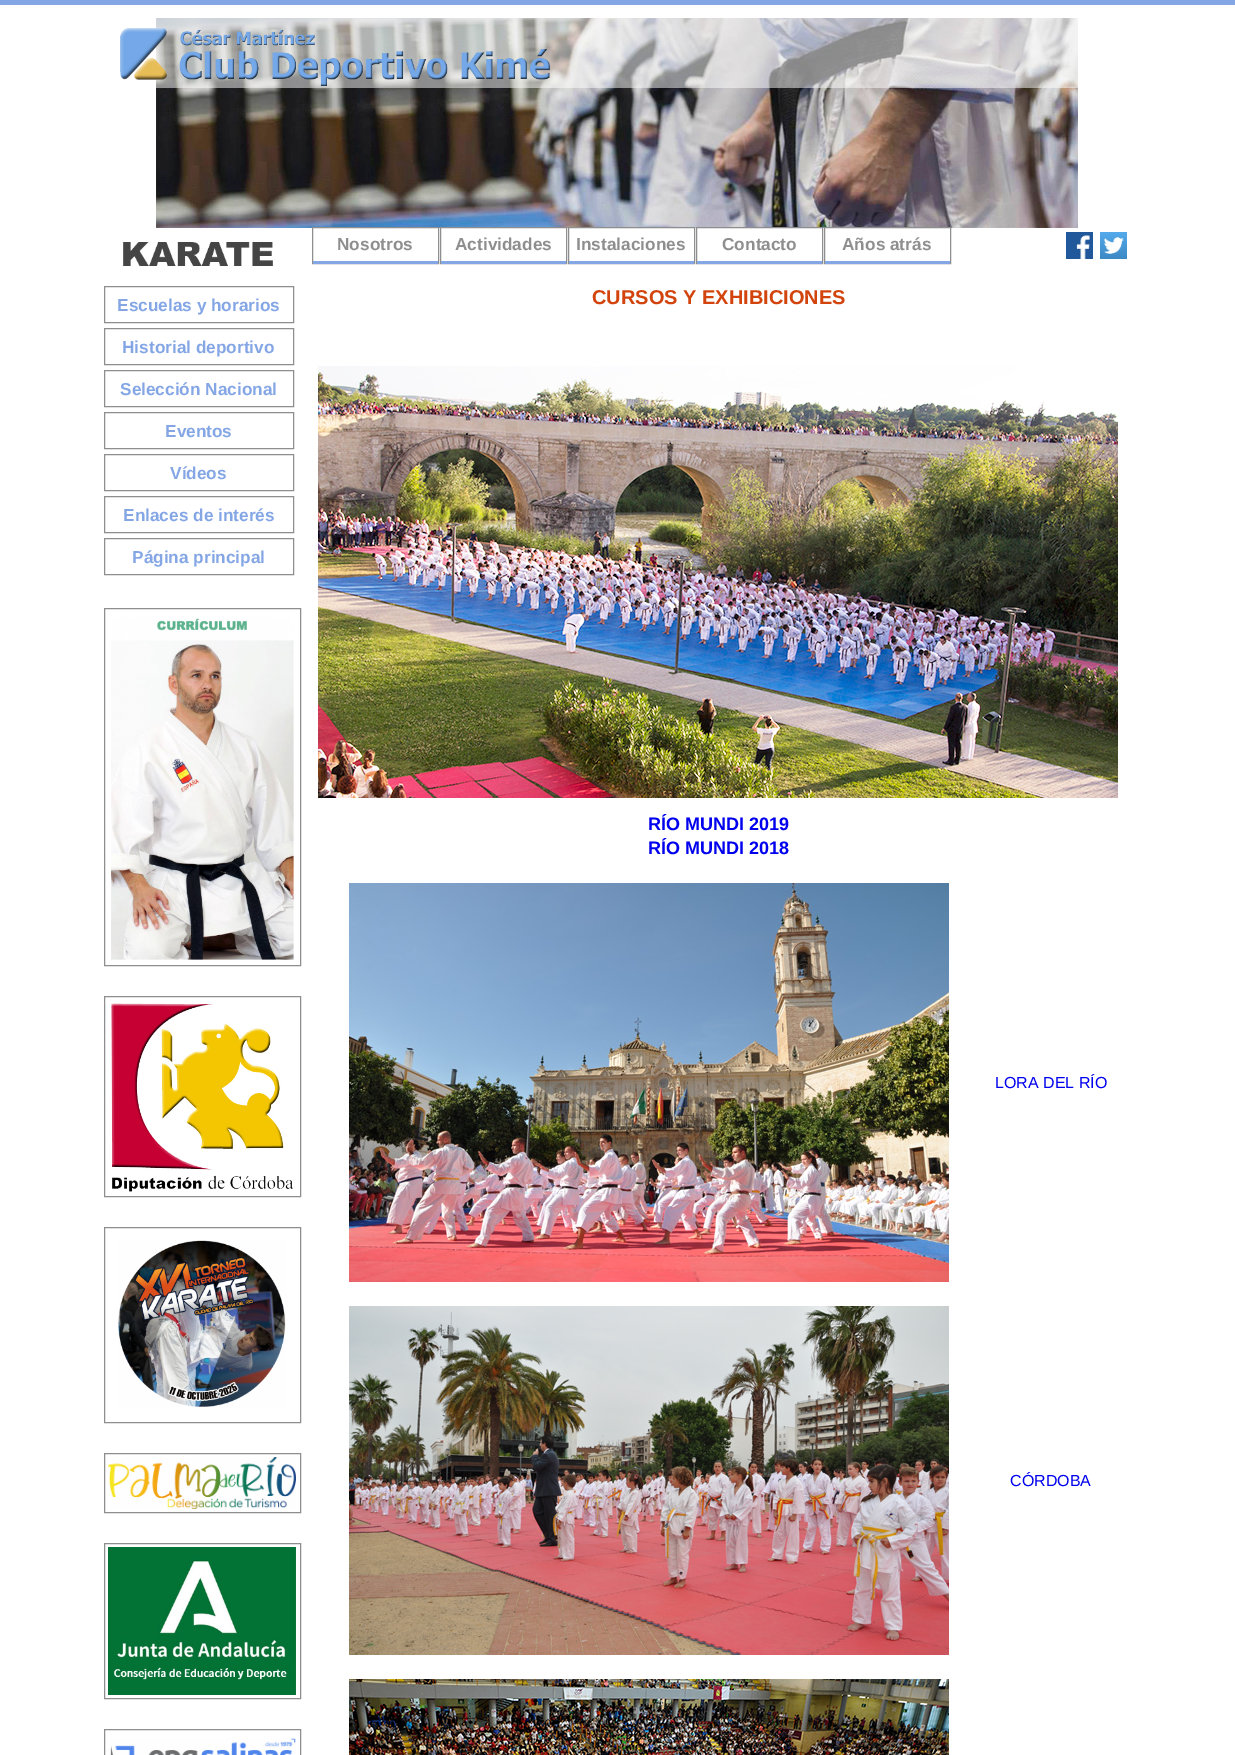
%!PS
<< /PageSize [1235 1755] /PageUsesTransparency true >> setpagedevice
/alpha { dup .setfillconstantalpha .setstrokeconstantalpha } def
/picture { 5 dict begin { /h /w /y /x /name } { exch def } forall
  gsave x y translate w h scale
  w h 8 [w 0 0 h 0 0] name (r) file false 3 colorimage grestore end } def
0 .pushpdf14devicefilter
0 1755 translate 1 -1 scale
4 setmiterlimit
1 setgray
0 0 1235 1755 rectfill
0.518 0.651 0.898 setrgbcolor
0 0 1235 5 rectfill
(img1.rgb) 156 18 922 210 picture
0.5 alpha
1 setgray
156 18 922 70 rectfill
1 alpha
(img2.rgb) 120 28 430 58 picture
(img3.rgb) 123 242 150 24 picture
0.557 setgray
312.5 227.5 126 36 rectstroke
/LiberationSans-Bold [17.25 0 0 -17.25 0 0] selectfont
337 250 moveto (Nosotros) show
0.518 0.651 0.898 setrgbcolor
313 261 125 3 rectfill
0.557 setgray
440.5 227.5 126 36 rectstroke
455 250 moveto (Actividades) show
0.518 0.651 0.898 setrgbcolor
441 261 125 3 rectfill
0.557 setgray
568.5 227.5 126 36 rectstroke
576 250 moveto (Instalaciones) show
0.518 0.651 0.898 setrgbcolor
569 261 125 3 rectfill
0.557 setgray
696.5 227.5 126 36 rectstroke
722 250 moveto (Contacto) show
0.518 0.651 0.898 setrgbcolor
697 261 125 3 rectfill
0.557 setgray
824.5 227.5 126 36 rectstroke
842 250 moveto (Años atrás) show
0.518 0.651 0.898 setrgbcolor
825 261 125 3 rectfill
(img4.rgb) 1066 232 27 27 picture
(img5.rgb) 1100 232 27 27 picture
0.557 setgray
104.5 286.5 189 36 rectstroke
0.518 0.651 0.898 setrgbcolor
117 311 moveto (Escuelas y horarios) show
0.557 setgray
104.5 328.5 189 36 rectstroke
0.518 0.651 0.898 setrgbcolor
122 353 moveto (Historial deportivo) show
0.557 setgray
104.5 370.5 189 36 rectstroke
0.518 0.651 0.898 setrgbcolor
120 395 moveto (Selección Nacional) show
0.557 setgray
104.5 412.5 189 36 rectstroke
0.518 0.651 0.898 setrgbcolor
165 437 moveto (Eventos) show
0.557 setgray
104.5 454.5 189 36 rectstroke
0.518 0.651 0.898 setrgbcolor
170 479 moveto (Vídeos) show
0.557 setgray
104.5 496.5 189 36 rectstroke
0.518 0.651 0.898 setrgbcolor
123 521 moveto (Enlaces de interés) show
0.557 setgray
104.5 538.5 189 36 rectstroke
0.518 0.651 0.898 setrgbcolor
132 563 moveto (Página principal) show
0.557 setgray
104.5 608.5 196 357 rectstroke
(img6.rgb) 111 618 183 342 picture
104.5 996.5 196 200 rectstroke
(img7.rgb) 111 1003 183 189 picture
104.5 1227.5 196 195 rectstroke
(img8.rgb) 118 1240 168 167 picture
104.5 1453.5 196 59 rectstroke
(img9.rgb) 108 1457 188 52 picture
104.5 1543.5 196 155 rectstroke
(img10.rgb) 108 1547 188 148 picture
104.5 1729.5 196 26 rectstroke
(img11.rgb) 110 1738 186 17 picture
/LiberationSans-Bold [20 0 0 -20 0 0] selectfont
0.824 0.267 0.047 setrgbcolor
592 304 moveto (CURSOS Y EXHIBICIONES) show
(img12.rgb) 318 366 800 432 picture
/LiberationSans-Bold [18 0 0 -18 0 0] selectfont
0 0 0.933 setrgbcolor
648 830 moveto (RÍO MUNDI 2019) show
648 854 moveto (RÍO MUNDI 2018) show
(img13.rgb) 349 883 600 399 picture
/LiberationSans-Regular [16 0 0 -16 0 0] selectfont
995 1088 moveto (LORA DEL RÍO) show
(img14.rgb) 349 1306 600 349 picture
1010 1486 moveto (CÓRDOBA) show
(img15.rgb) 349 1679 600 76 picture
.poppdf14devicefilter showpage
